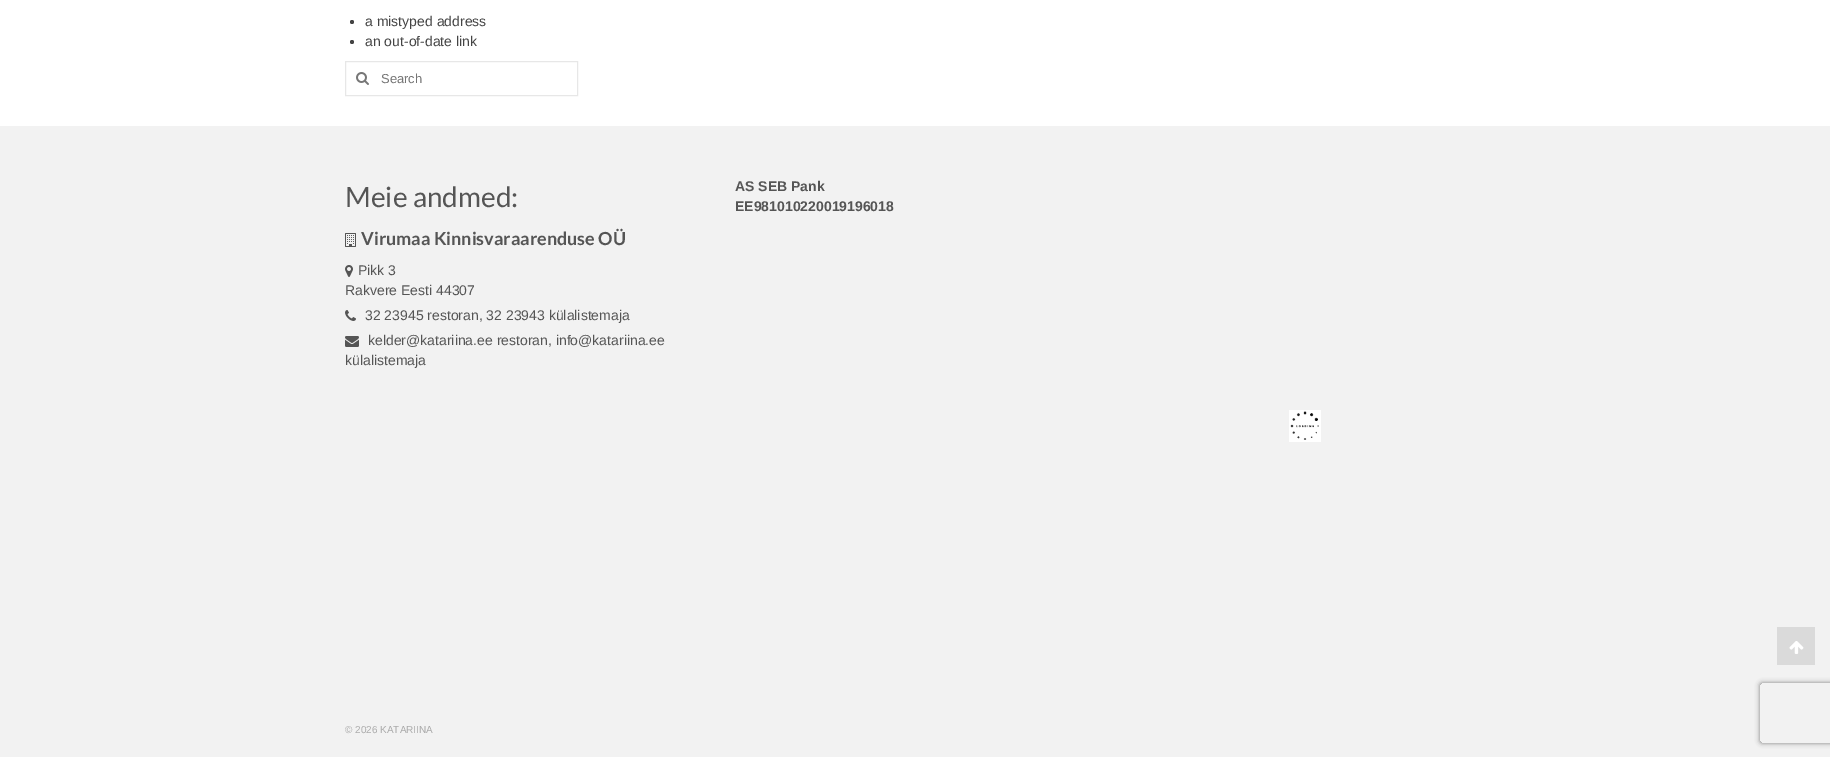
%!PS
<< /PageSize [1830 757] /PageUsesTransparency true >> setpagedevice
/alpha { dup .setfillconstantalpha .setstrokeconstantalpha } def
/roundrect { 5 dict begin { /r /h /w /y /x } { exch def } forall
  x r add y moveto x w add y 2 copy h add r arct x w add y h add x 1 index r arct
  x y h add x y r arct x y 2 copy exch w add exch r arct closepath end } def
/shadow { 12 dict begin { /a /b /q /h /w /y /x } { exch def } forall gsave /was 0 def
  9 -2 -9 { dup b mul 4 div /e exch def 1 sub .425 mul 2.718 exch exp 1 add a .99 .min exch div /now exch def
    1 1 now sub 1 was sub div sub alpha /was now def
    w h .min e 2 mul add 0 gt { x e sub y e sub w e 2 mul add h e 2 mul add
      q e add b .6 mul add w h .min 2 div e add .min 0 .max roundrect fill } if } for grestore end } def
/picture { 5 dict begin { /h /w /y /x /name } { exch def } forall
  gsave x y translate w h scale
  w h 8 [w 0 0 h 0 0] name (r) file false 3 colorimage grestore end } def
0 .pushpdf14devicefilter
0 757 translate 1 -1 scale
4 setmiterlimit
1 setgray
0 0 1830 757 rectfill
0.267 setgray
newpath 352 22 2 0 360 arc closepath fill
/LiberationSans-Regular [14 0 0 -14 0 0] selectfont
365 26 moveto (a mistyped address) show
newpath 352 42 2 0 360 arc closepath fill
365 46 moveto (an out-of-date link) show
0.906 setgray
345.5 61.5 232 34 rectstroke
(img1.rgb) 356 72 13 13 picture
/LiberationSans-Regular [13 0 0 -13 0 0] selectfont
0.459 setgray
381 83 moveto (Search) show
0.949 setgray
0 126 1830 631 rectfill
/Lato-Regular [28 0 0 -28 0 0] selectfont
0.333 setgray
345 207 moveto (Meie andmed:) show
(img2.rgb) 345 233 11 14 picture
/Lato-Bold [18 0 0 -18 0 0] selectfont
361 245 moveto (Virumaa Kinnisvaraarenduse OÜ) show
(img3.rgb) 345 265 8 12 picture
/LiberationSans-Regular [14 0 0 -14 0 0] selectfont
358 275 moveto (Pikk 3) show
345 295 moveto (Rakvere Eesti 44307) show
(img4.rgb) 345 310 11 11 picture
365 320 moveto (32 23945 restoran, 32 23943 külalistemaja) show
(img5.rgb) 345 336 14 11 picture
368 345 moveto (kelder@katariina.ee restoran, info@katariina.ee) show
345 365 moveto (külalistemaja) show
/LiberationSans-Bold [14 0 0 -14 0 0] selectfont
735 191 moveto (AS SEB Pank) show
735 211 moveto (EE981010220019196018) show
(img6.rgb) 1289 410 32 32 picture
/LiberationSans-Regular [10 0 0 -10 0 0] selectfont
0.667 setgray
345 733 moveto (© 2026 KATARIINA) show
0.855 setgray
1777 627 38 38 rectfill
(img7.rgb) 1789 641 15 13 picture
gsave
newpath 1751 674 moveto 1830 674 lineto 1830 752 lineto 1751 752 lineto closepath 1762 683 moveto 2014 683 lineto 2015 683 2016 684 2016 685 curveto 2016 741 lineto 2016 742 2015 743 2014 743 curveto 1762 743 lineto 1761 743 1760 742 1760 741 curveto 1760 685 lineto 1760 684 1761 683 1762 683 curveto closepath eoclip newpath
0.502 setgray
1760 683 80 60 2 2.5 1 shadow
grestore
.poppdf14devicefilter showpage
